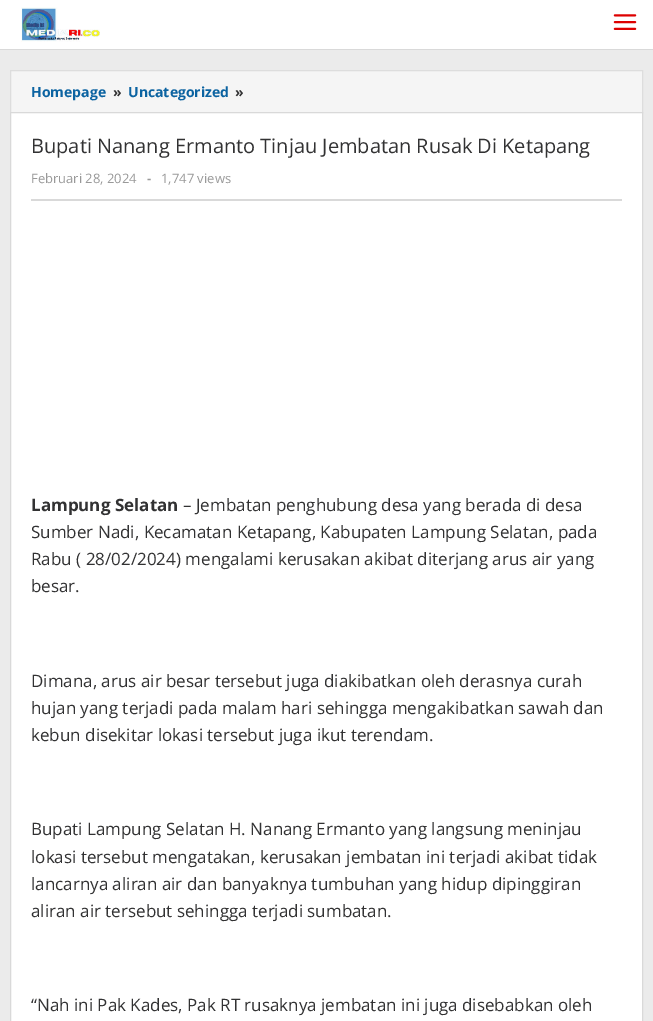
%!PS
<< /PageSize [653 1021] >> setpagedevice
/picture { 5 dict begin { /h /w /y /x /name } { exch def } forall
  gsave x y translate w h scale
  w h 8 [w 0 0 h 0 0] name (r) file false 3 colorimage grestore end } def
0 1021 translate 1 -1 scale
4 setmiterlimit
0.922 setgray
0 0 653 1021 rectfill
1 setgray
0 0 653 49 rectfill
0.851 setgray
0 49 653 1 rectfill
(img1.rgb) 21 7 79 35 picture
(img2.rgb) 613 14 24 16 picture
0.961 setgray
newpath 10.5 70.5 moveto 642.5 70.5 lineto 642.5 112.5 lineto 10.5 112.5 lineto closepath gsave fill grestore
0.867 setgray
stroke
/OpenSans-Bold [14 0 0 -14 0 0] selectfont
0.043 0.388 0.631 setrgbcolor
31 97 moveto (Homepage) show
0.196 0.196 0.2 setrgbcolor
113 97 moveto (») show
0.043 0.388 0.631 setrgbcolor
128 97 moveto (Uncategorized) show
0.196 0.196 0.2 setrgbcolor
235 97 moveto (») show
1 setgray
newpath 10.5 112.5 moveto 642.5 112.5 lineto 642.5 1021.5 lineto 10.5 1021.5 lineto closepath gsave fill grestore
0.851 setgray
stroke
31 199 591 2 rectfill
/OpenSans-Regular [20 0 0 -20 0 0] selectfont
0.196 0.196 0.2 setrgbcolor
31 153 moveto (Bupati Nanang Ermanto Tinjau Jembatan Rusak Di Ketapang) show
/OpenSans-Regular [13 0 0 -13 0 0] selectfont
0.6 setgray
31 183 moveto (Februari 28, 2024) show
/OpenSans-Bold [13 0 0 -13 0 0] selectfont
147 183 moveto (-) show
/OpenSans-Regular [13 0 0 -13 0 0] selectfont
161 183 moveto (1,747 views) show
/OpenSans-Bold [17 0 0 -17 0 0] selectfont
0.196 0.196 0.2 setrgbcolor
31 511 moveto (Lampung Selatan) show
/OpenSans-Regular [17 0 0 -17 0 0] selectfont
183 511 moveto (– Jembatan penghubung desa yang berada di desa) show
31 538 moveto (Sumber Nadi, Kecamatan Ketapang, Kabupaten Lampung Selatan, pada) show
31 565 moveto (Rabu \( 28/02/2024\) mengalami kerusakan akibat diterjang arus air yang) show
31 592 moveto (besar.) show
31 687 moveto (Dimana, arus air besar tersebut juga diakibatkan oleh derasnya curah) show
31 714 moveto (hujan yang terjadi pada malam hari sehingga mengakibatkan sawah dan) show
31 741 moveto (kebun disekitar lokasi tersebut juga ikut terendam.) show
31 835 moveto (Bupati Lampung Selatan H. Nanang Ermanto yang langsung meninjau) show
31 863 moveto (lokasi tersebut mengatakan, kerusakan jembatan ini terjadi akibat tidak) show
31 890 moveto (lancarnya aliran air dan banyaknya tumbuhan yang hidup dipinggiran) show
31 917 moveto (aliran air tersebut sehingga terjadi sumbatan.) show
31 1011 moveto (“Nah ini Pak Kades, Pak RT rusaknya jembatan ini juga disebabkan oleh) show
showpage
